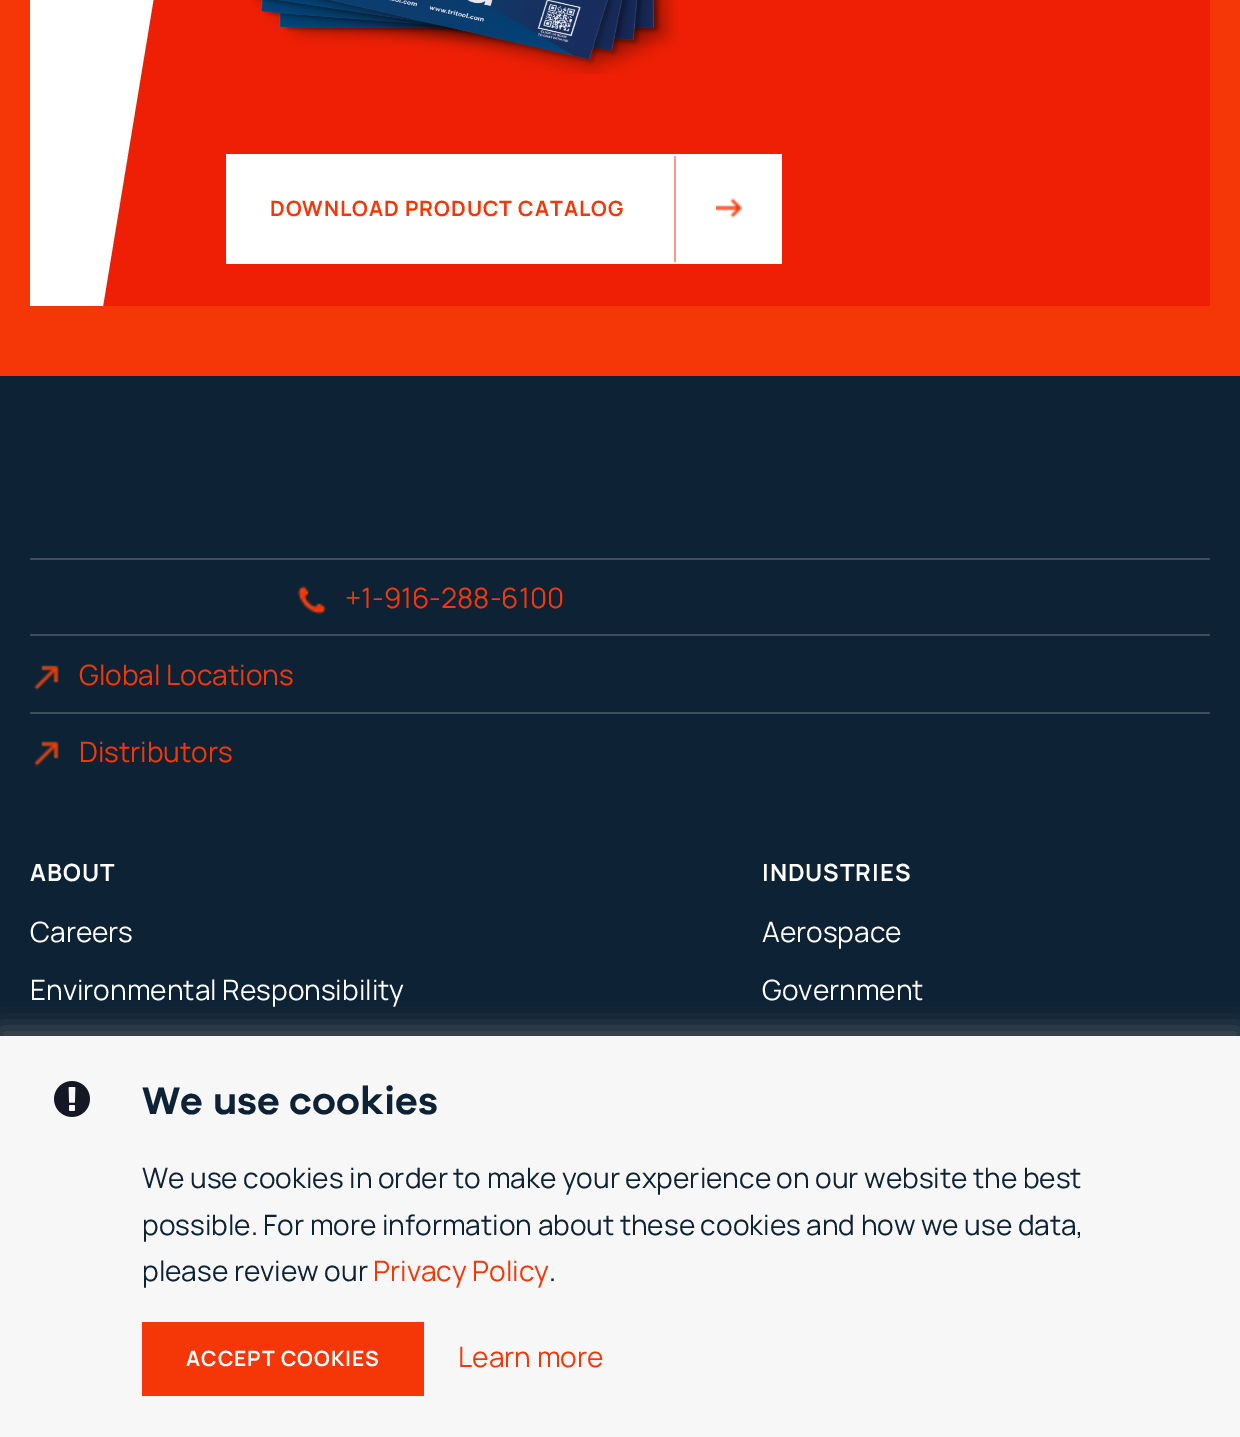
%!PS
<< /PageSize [1240 1437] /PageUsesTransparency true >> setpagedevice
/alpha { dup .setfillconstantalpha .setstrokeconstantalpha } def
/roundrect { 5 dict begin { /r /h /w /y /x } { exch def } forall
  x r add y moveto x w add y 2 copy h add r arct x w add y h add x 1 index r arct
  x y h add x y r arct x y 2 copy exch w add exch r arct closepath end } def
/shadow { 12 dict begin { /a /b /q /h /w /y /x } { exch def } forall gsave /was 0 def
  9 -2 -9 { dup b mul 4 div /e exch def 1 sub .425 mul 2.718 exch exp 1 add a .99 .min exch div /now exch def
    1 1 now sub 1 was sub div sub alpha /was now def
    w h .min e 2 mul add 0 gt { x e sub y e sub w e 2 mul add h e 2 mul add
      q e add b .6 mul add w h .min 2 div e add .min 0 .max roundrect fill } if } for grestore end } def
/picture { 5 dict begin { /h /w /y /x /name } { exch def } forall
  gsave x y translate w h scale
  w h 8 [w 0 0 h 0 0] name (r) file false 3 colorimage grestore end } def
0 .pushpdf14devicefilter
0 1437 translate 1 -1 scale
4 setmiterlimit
0.961 0.216 0.031 setrgbcolor
0 0 1240 1437 rectfill
0.933 0.122 0.016 setrgbcolor
103 0 1107 306 rectfill
1 setgray
newpath 30 -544 moveto 103 -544 lineto 173 -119 lineto 103 306 lineto 30 306 lineto closepath fill
(img1.rgb) 249 0 429 74 picture
226 154 556 110 rectfill
/Manrope-Bold [21 0 0 -21 0 0] selectfont
0.961 0.216 0.031 setrgbcolor
270 216 moveto 1 0 (DOWNLOAD PRODUCT CATALOG) ashow
(img2.rgb) 716 198 26 20 picture
0.98 0.608 0.518 setrgbcolor
674 156 2 106 rectfill
0.051 0.133 0.208 setrgbcolor
0 376 1240 660 rectfill
0.239 0.306 0.365 setrgbcolor
30 558 1180 2 rectfill
(img3.rgb) 297 585 30 30 picture
/Manrope-Regular [28 0 0 -28 0 0] selectfont
0.961 0.216 0.031 setrgbcolor
345 608 moveto (+1-916-288-6100) show
0.239 0.306 0.365 setrgbcolor
30 634 1180 2 rectfill
(img4.rgb) 33 665 26 26 picture
0.961 0.216 0.031 setrgbcolor
79 685 moveto (Global Locations) show
0.239 0.306 0.365 setrgbcolor
30 712 1180 2 rectfill
(img4.rgb) 33 741 26 26 picture
0.961 0.216 0.031 setrgbcolor
79 762 moveto (Distributors) show
/Manrope-Bold [23.75 0 0 -23.75 0 0] selectfont
1 setgray
30 881 moveto 1 0 (ABOUT) ashow
/Manrope-Regular [28 0 0 -28 0 0] selectfont
30 942 moveto (Careers) show
30 1000 moveto (Environmental Responsibility) show
/Manrope-Bold [23.75 0 0 -23.75 0 0] selectfont
762 881 moveto 1 0 (INDUSTRIES) ashow
/Manrope-Regular [28 0 0 -28 0 0] selectfont
762 942 moveto (Aerospace) show
762 1000 moveto (Government) show
0.49 setgray
0 1028 1240 402 0 12 0.5 shadow
0.969 0.969 0.973 setrgbcolor
0 1036 1240 401 rectfill
(img5.rgb) 54 1081 36 36 picture
/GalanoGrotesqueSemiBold-SemiBold [39.75 0 0 -39.75 0 0] selectfont
0.051 0.133 0.208 setrgbcolor
142 1114 moveto (We use cookies) show
/Manrope-Regular [28 0 0 -28 0 0] selectfont
142 1188 moveto (We use cookies in order to make your experience on our website the best) show
142 1235 moveto (possible. For more information about these cookies and how we use data,) show
142 1281 moveto (please review our) show
0.961 0.216 0.031 setrgbcolor
373 1281 moveto (Privacy Policy) show
0.051 0.133 0.208 setrgbcolor
549 1281 moveto (.) show
0.961 0.216 0.031 setrgbcolor
142 1322 282 74 rectfill
/Manrope-Bold [21 0 0 -21 0 0] selectfont
1 setgray
186 1366 moveto 1 0 (ACCEPT COOKIES) ashow
/Manrope-Regular [28 0 0 -28 0 0] selectfont
0.961 0.216 0.031 setrgbcolor
458 1367 moveto (Learn more) show
.poppdf14devicefilter showpage
